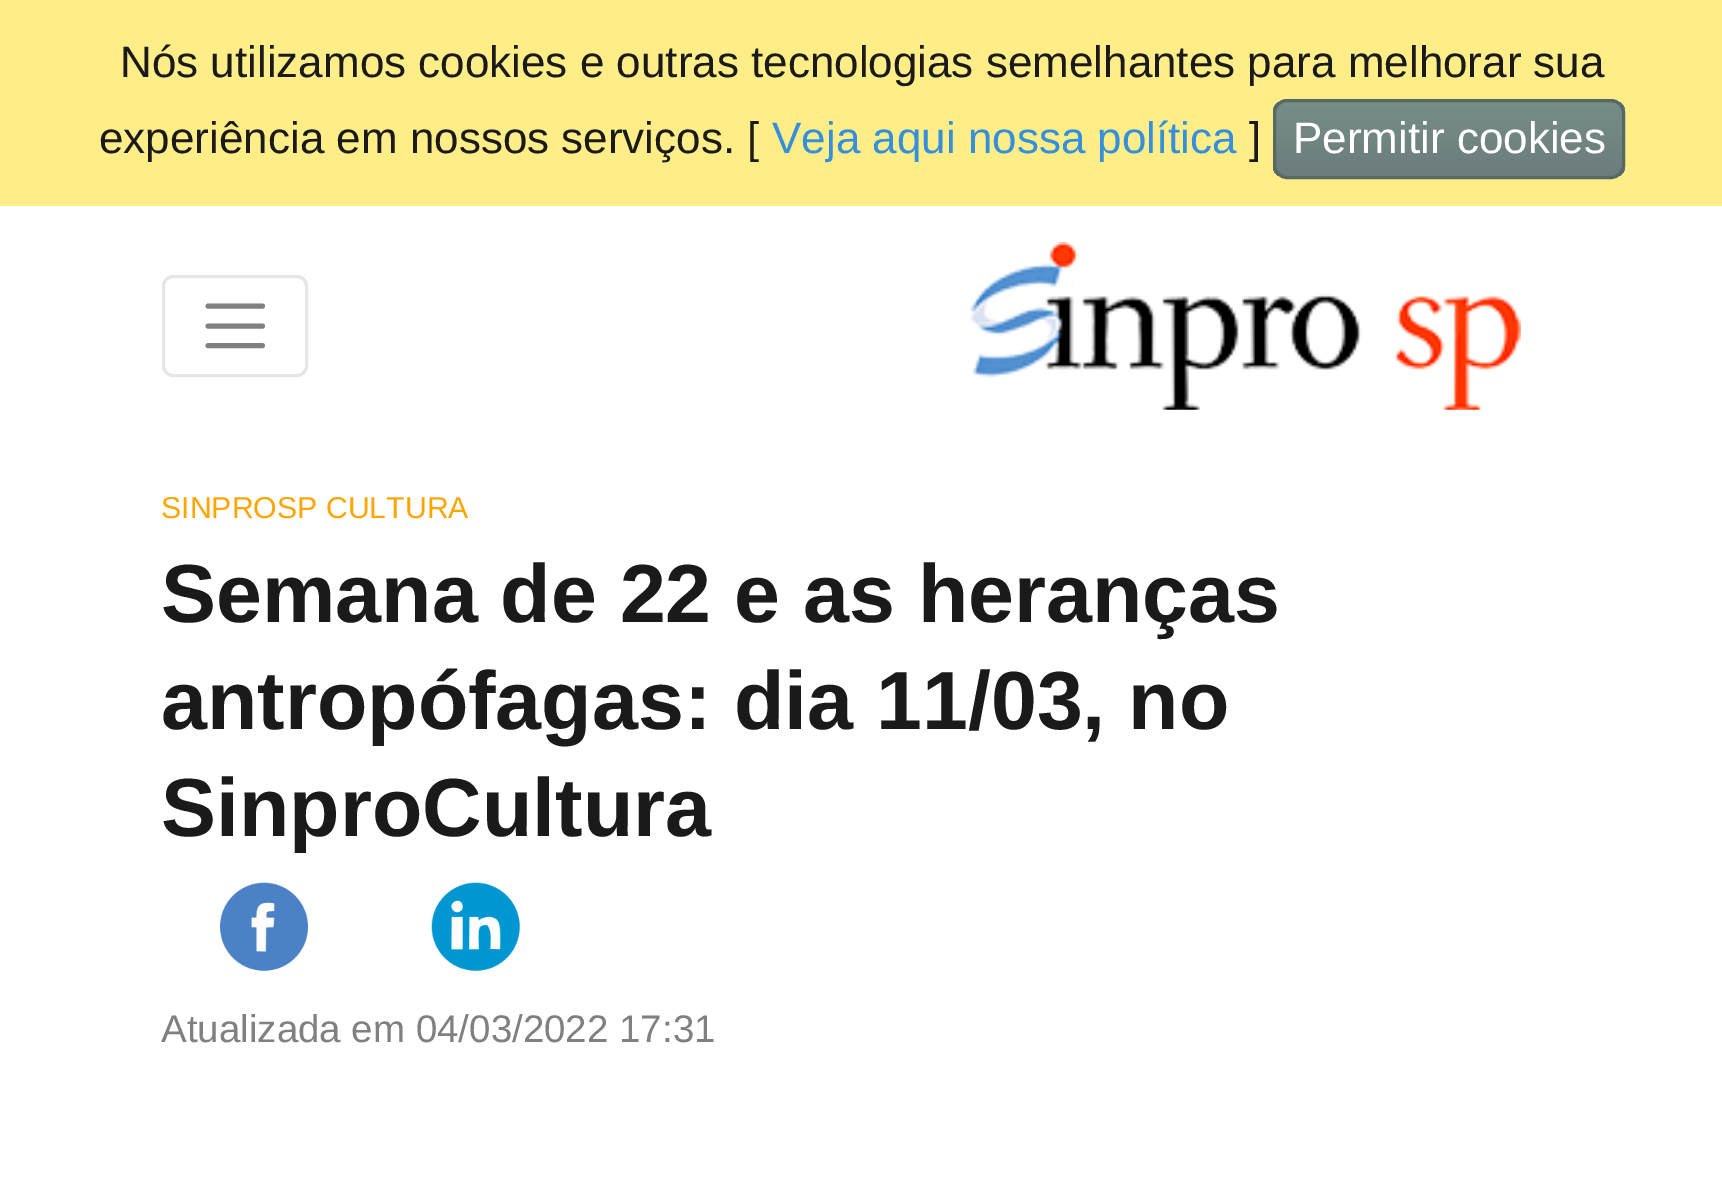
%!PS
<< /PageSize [1722 1181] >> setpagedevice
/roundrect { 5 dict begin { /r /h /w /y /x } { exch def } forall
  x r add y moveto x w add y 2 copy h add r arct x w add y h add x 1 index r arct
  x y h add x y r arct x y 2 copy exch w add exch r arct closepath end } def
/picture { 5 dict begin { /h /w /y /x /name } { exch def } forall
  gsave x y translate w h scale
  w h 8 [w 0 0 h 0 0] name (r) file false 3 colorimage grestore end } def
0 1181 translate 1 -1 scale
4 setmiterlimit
1 setgray
0 0 1722 1181 rectfill
1 0.933 0.533 setrgbcolor
0 0 1722 206 rectfill
/LiberationSans-Regular [44 0 0 -44 0 0] selectfont
0.102 setgray
120 77 moveto (Nós utilizamos cookies e outras tecnologias semelhantes para melhorar sua) show
99 153 moveto (experiência em nossos serviços. [) show
0.204 0.565 0.863 setrgbcolor
772 153 moveto (Veja aqui nossa política) show
0.102 setgray
1249 153 moveto (]) show
gsave
1273 99 352 80 14 roundrect clip newpath
gsave newpath 1273 102 moveto 1625 102 lineto 1625 176 lineto 1273 176 lineto closepath clip newpath
<< /ShadingType 2 /ColorSpace /DeviceRGB /Coords [1449 102 1449 176] /Extend [true true] /Function << /FunctionType 3 /Domain [0 1] /Functions [<< /FunctionType 2 /Domain [0 1] /C0 [0.463 0.553 0.529] /C1 [0.463 0.553 0.529] /N 1 >> << /FunctionType 2 /Domain [0 1] /C0 [0.463 0.553 0.529] /C1 [0.424 0.486 0.486] /N 1 >>] /Bounds [0.05] /Encode [0 1 0 1] >> >> shfill grestore
grestore
0.337 0.412 0.388 setrgbcolor
3 setlinewidth
1274.5 100.5 349 77 12.5 roundrect stroke
1 setgray
1293 153 moveto (Permitir cookies) show
0.902 setgray
163.5 276.5 143 99 9.5 roundrect stroke
0.502 setgray
5 setlinewidth
1 setlinecap
newpath 208 306 moveto 262.5 306 lineto 208 326 moveto 262.5 326 lineto 208 345.5 moveto 262.5 345.5 lineto stroke
(img1.rgb) 970 242 551 168 picture
/LiberationSans-Regular [30.25 0 0 -30.25 0 0] selectfont
1 0.647 0 setrgbcolor
161 518 moveto (SINPROSP CULTURA) show
/LiberationSans-Bold [82.5 0 0 -82.5 0 0] selectfont
0.102 setgray
161 622 moveto (Semana de 22 e as heranças) show
161 729 moveto (antropófagas: dia 11/03, no) show
161 836 moveto (SinproCultura) show
(img2.rgb) 220 882 88 89 picture
(img3.rgb) 431 882 89 89 picture
/LiberationSans-Regular [38.5 0 0 -38.5 0 0] selectfont
0.502 setgray
161 1042 moveto (Atualizada em 04/03/2022 17:31) show
showpage
